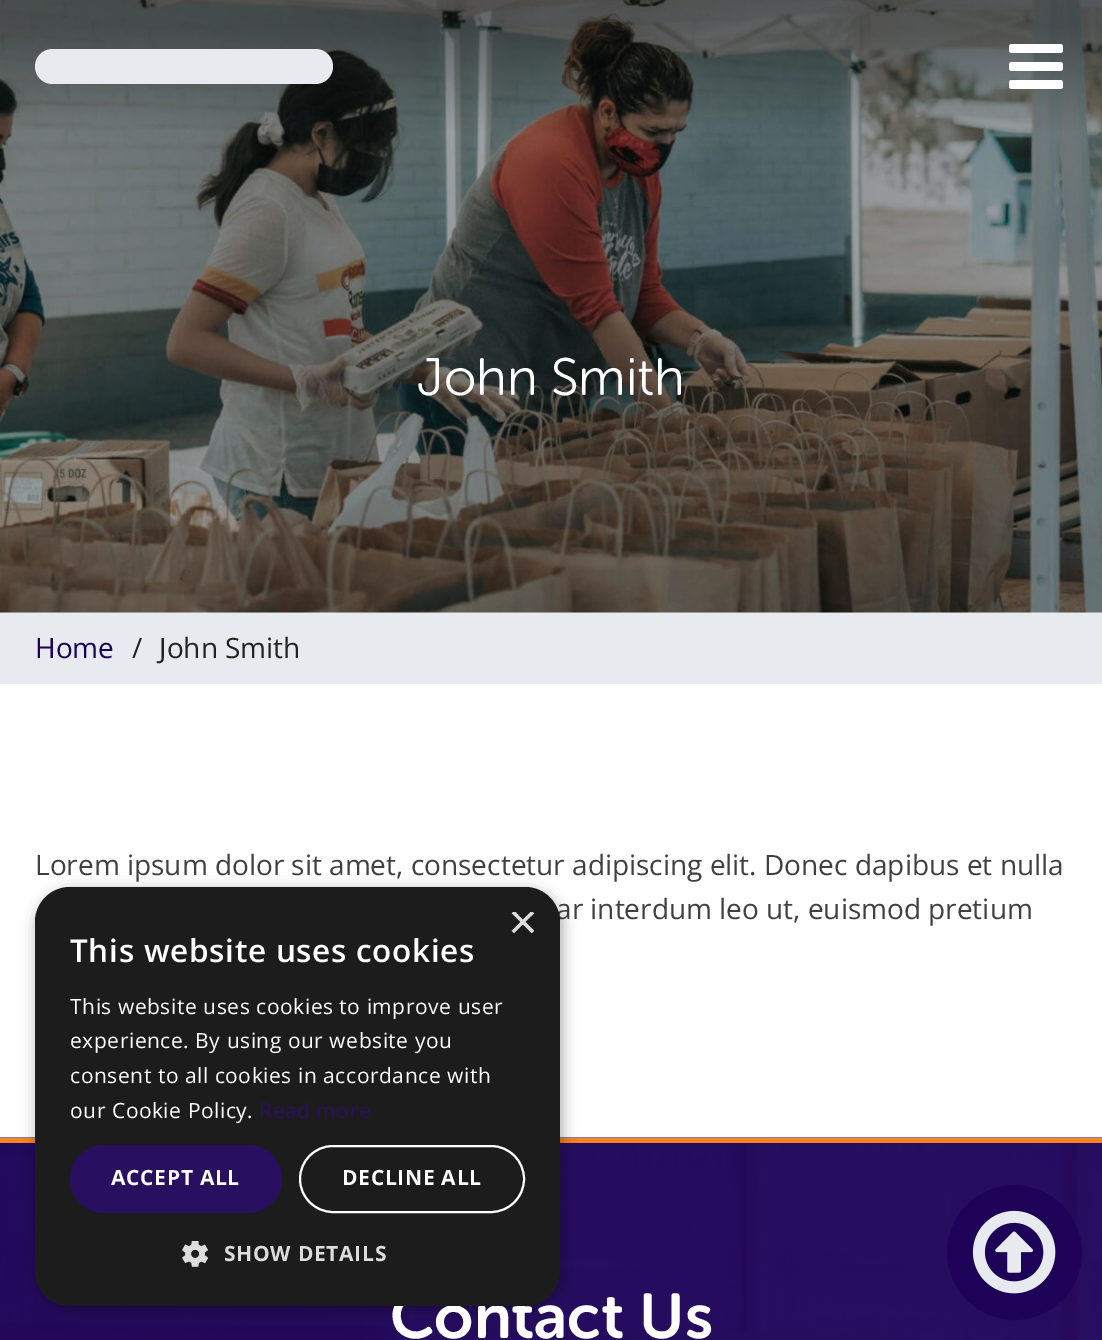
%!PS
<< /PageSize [1102 1340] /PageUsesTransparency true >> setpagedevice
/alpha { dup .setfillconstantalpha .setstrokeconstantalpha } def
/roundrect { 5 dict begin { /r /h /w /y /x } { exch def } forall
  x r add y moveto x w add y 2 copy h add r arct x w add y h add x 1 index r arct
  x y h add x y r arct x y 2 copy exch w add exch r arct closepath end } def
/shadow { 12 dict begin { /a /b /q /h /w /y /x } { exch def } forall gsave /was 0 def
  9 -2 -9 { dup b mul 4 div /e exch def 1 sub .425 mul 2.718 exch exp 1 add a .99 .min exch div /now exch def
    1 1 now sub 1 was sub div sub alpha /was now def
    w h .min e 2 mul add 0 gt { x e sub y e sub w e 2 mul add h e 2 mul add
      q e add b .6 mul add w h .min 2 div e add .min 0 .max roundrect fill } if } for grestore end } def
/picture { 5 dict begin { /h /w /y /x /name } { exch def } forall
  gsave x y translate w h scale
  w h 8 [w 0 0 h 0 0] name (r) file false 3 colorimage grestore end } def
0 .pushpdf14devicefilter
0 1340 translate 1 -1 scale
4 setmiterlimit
1 setgray
0 0 1102 1340 rectfill
(img2.rgb) 0 0 1102 613 picture
0.906 0.918 0.933 setrgbcolor
35 49 298 35 17.5 roundrect fill
(img1.rgb) 1009 44 54 45 picture
/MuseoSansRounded-Light [52.5 0 0 -52.5 0 0] selectfont
1 setgray
417 395 moveto (John Smith) show
0.906 0.918 0.933 setrgbcolor
0 613 1102 71 rectfill
/OpenSans-Regular [28 0 0 -28 0 0] selectfont
0.114 0.008 0.345 setrgbcolor
35 658 moveto (Home) show
0.133 setgray
132 658 moveto (/) show
159 658 moveto (John Smith) show
0.251 setgray
35 875 moveto (Lorem ipsum dolor sit amet, consectetur adipiscing elit. Donec dapibus et nulla) show
556 919 moveto (ar interdum leo ut, euismod pretium) show
(img4.rgb) 0 1137 1102 203 picture
0.969 0.518 0.133 setrgbcolor
0 1138 1102 5 rectfill
0 setgray
37 891 525 418 35 7 0.35 shadow
/MuseoSansRounded-SemiBold [63 0 0 -63 0 0] selectfont
1 setgray
390 1338 moveto (Contact Us) show
0.11 setgray
35 887 525 419 35 roundrect fill
gsave
508 912 26 26 rectclip
/LiberationSans-Regular [51 0 0 -51 0 0] selectfont
0.867 setgray
508 939 moveto (×) show
grestore
/OpenSans-SemiBold [31.5 0 0 -31.5 0 0] selectfont
1 setgray
70 962 moveto 0.7 0 (This website uses cookies) ashow
/OpenSans-Regular [21 0 0 -21 0 0] selectfont
70 1014 moveto 0.55 0 (This website uses cookies to improve user) ashow
70 1048 moveto 0.55 0 (experience. By using our website you) ashow
70 1083 moveto 0.55 0 (consent to all cookies in accordance with) ashow
70 1118 moveto 0.55 0 (our Cookie Policy.) ashow
0.157 0.059 0.376 setrgbcolor
259 1118 moveto 0.55 0 (Read more) ashow
70 1145 212 68 34 roundrect fill
/OpenSans-Bold [21 0 0 -21 0 0] selectfont
1 setgray
111 1185 moveto 0.7 0 (ACCEPT ALL) ashow
2 setlinewidth
300 1146 224 66 33 roundrect stroke
342 1185 moveto 0.7 0 (DECLINE ALL) ashow
(img3.rgb) 182 1241 26 26 picture
0.867 setgray
224 1261 moveto 0.7 0 (SHOW DETAILS) ashow
0.114 0.008 0.345 setrgbcolor
newpath 1014.5 1252.5 66.5 0 360 arc closepath gsave fill grestore
stroke
(img5.rgb) 972 1210 84 84 picture
.poppdf14devicefilter showpage
